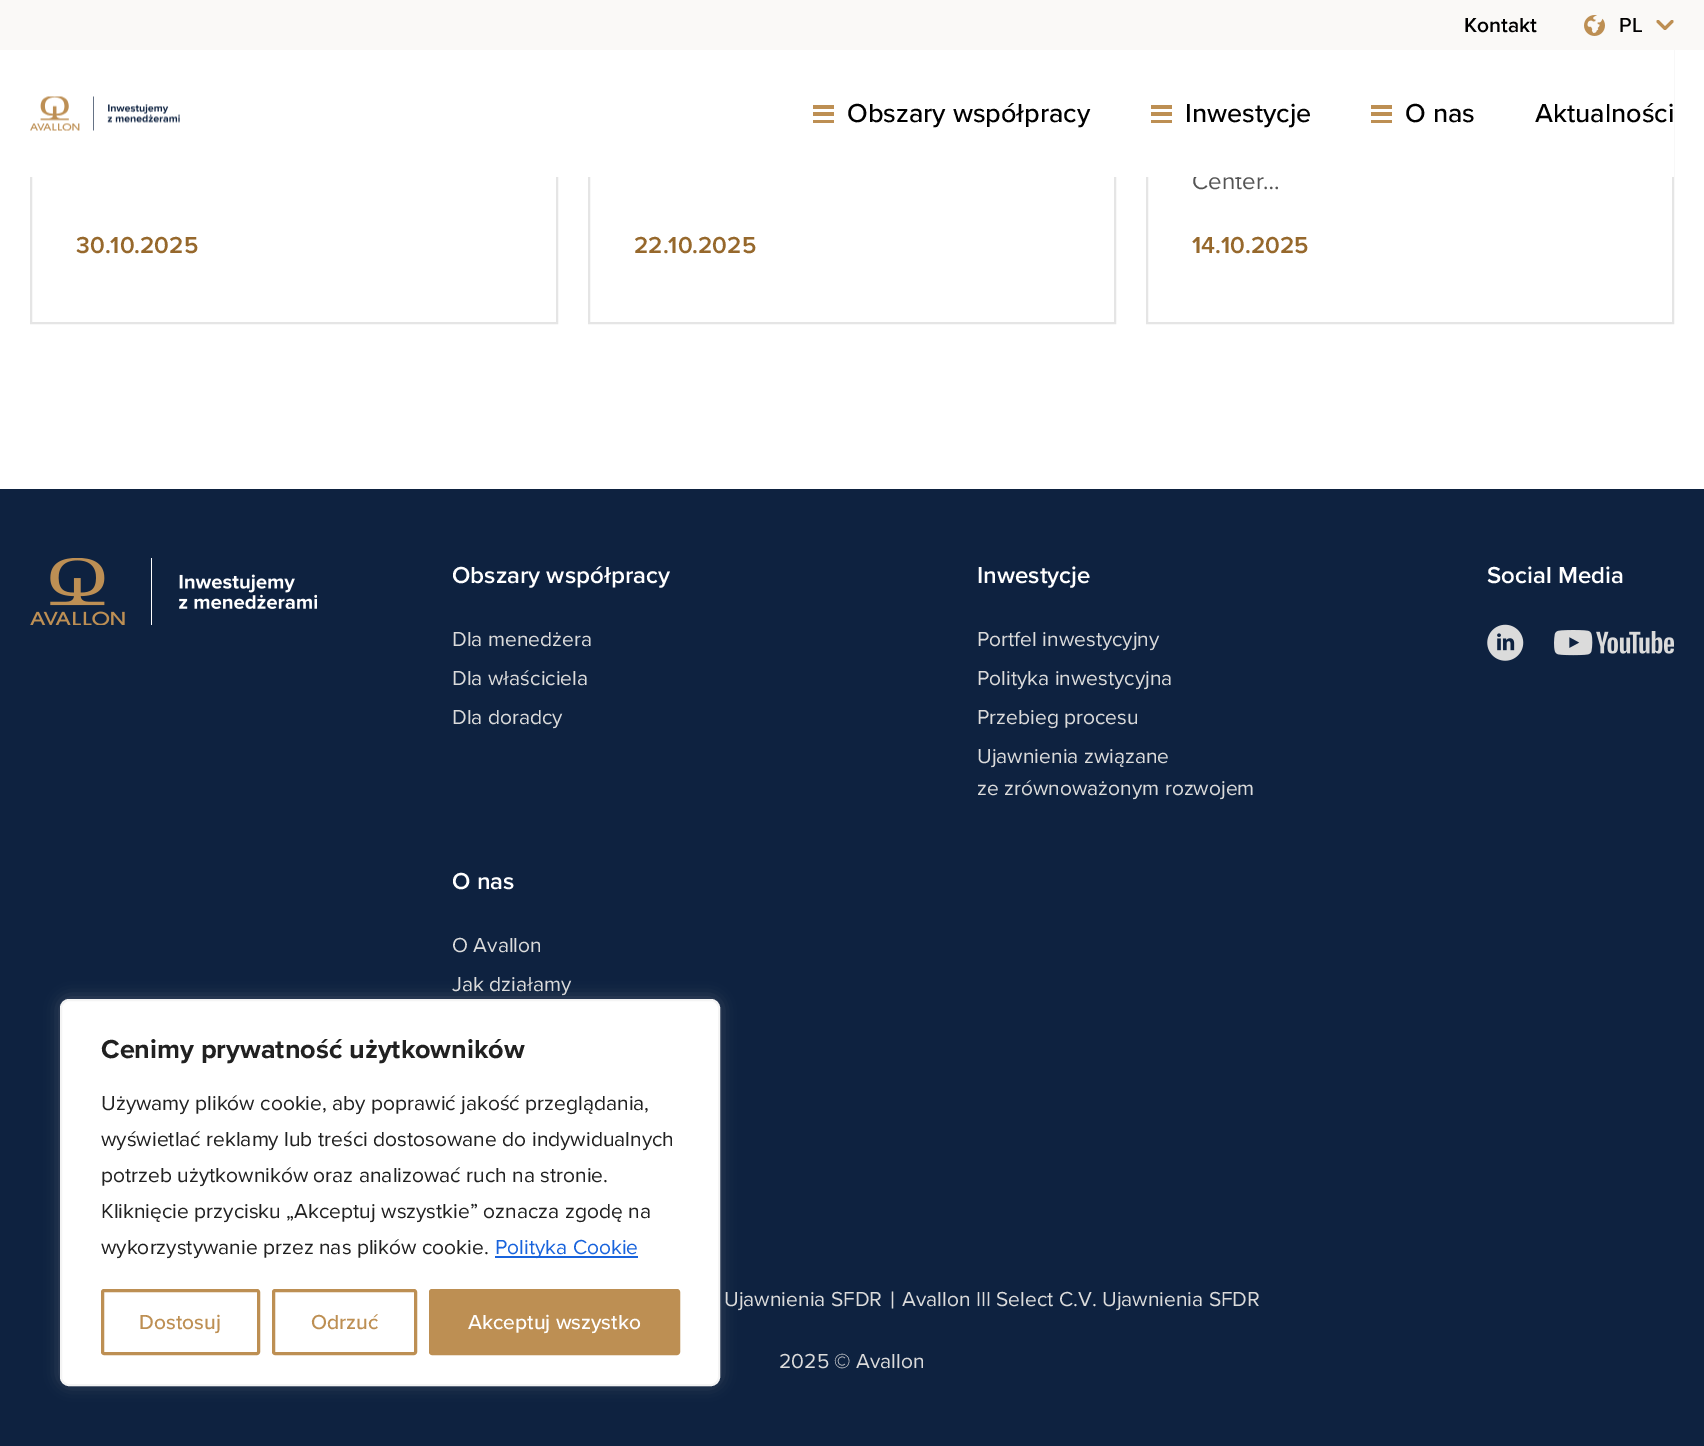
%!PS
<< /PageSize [1704 1446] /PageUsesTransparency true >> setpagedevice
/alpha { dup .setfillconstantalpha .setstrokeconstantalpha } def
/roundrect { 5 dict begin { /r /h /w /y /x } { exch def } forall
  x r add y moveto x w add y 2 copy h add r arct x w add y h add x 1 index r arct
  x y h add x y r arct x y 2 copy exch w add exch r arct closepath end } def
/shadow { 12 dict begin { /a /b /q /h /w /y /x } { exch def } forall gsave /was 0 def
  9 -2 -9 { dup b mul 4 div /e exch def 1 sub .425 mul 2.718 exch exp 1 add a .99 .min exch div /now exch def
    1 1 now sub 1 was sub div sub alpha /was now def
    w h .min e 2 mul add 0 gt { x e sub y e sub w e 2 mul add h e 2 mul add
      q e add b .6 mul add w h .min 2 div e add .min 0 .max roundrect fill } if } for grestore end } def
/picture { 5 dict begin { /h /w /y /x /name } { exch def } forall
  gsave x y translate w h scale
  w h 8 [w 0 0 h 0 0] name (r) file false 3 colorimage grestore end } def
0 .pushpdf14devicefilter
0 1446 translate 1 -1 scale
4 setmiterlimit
1 setgray
0 0 1704 1446 rectfill
0.898 setgray
2 setlinewidth
31 -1 526 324 rectstroke
589 -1 526 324 rectstroke
1147 -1 526 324 rectstroke
/ProximaNova-Regular [24 0 0 -24 0 0] selectfont
0.329 setgray
1192 189 moveto (Center…) show
1 setgray
30 50 1644 127 rectfill
0.98 0.976 0.969 setrgbcolor
0 0 1704 50 rectfill
/ProximaNova-SemiBold [21 0 0 -21 0 0] selectfont
0 setgray
1464 32 moveto (Kontakt) show
(img1.rgb) 1584 15 21 21 picture
/ProximaNova-Medium [21 0 0 -21 0 0] selectfont
1619 32 moveto (PL) show
0.741 0.561 0.325 setrgbcolor
3 setlinewidth
1 setlinecap
1 setlinejoin
newpath 1658 21.5 moveto 1665 28.5 lineto 1672 21.5 lineto stroke
(img2.rgb) 30 96 150 35 picture
813 105 21 4 rectfill
813 112 21 4 rectfill
813 120 21 3 rectfill
/ProximaNova-Medium [27 0 0 -27 0 0] selectfont
0 setgray
847 122 moveto (Obszary współpracy) show
0.741 0.561 0.325 setrgbcolor
1151 105 21 4 rectfill
1151 112 21 4 rectfill
1151 120 21 3 rectfill
0 setgray
1185 122 moveto (Inwestycje) show
0.741 0.561 0.325 setrgbcolor
1371 105 21 4 rectfill
1371 112 21 4 rectfill
1371 120 21 3 rectfill
0 setgray
1405 122 moveto (O nas) show
1535 122 moveto (Aktualności) show
/ProximaNova-SemiBold [24 0 0 -24 0 0] selectfont
0.588 0.408 0.173 setrgbcolor
76 253 moveto (30.10.2025) show
634 253 moveto (22.10.2025) show
1192 253 moveto (14.10.2025) show
0.055 0.133 0.251 setrgbcolor
0 489 1704 957 rectfill
0.675 0.671 0.671 setrgbcolor
60 998 660 387 9 7.5 0.3 shadow
1 setgray
61 1000 658 385 8 roundrect gsave fill grestore
0.957 setgray
2 setlinewidth
0 setlinecap
0 setlinejoin
stroke
/ProximaNova-Bold [27 0 0 -27 0 0] selectfont
0.129 setgray
101 1058 moveto (Cenimy prywatność użytkowników) show
/ProximaNova-Regular [21 0 0 -21 0 0] selectfont
101 1110 moveto (Używamy plików cookie, aby poprawić jakość przeglądania,) show
101 1146 moveto (wyświetlać reklamy lub treści dostosowane do indywidualnych) show
101 1182 moveto (potrzeb użytkowników oraz analizować ruch na stronie.) show
101 1218 moveto (Kliknięcie przycisku „Akceptuj wszystkie” oznacza zgodę na) show
101 1254 moveto (wykorzystywanie przez nas plików cookie.) show
0.094 0.388 0.863 setrgbcolor
495 1256 143 2 rectfill
495 1254 moveto (Polityka Cookie) show
0.741 0.561 0.325 setrgbcolor
3 setlinewidth
102.5 1290.5 156 63 1.5 roundrect stroke
/ProximaNova-Medium [21 0 0 -21 0 0] selectfont
139 1329 moveto (Dostosuj) show
273.5 1290.5 142 63 1.5 roundrect stroke
311 1329 moveto (Odrzuć) show
430.5 1290.5 248 63 1.5 roundrect gsave fill grestore
stroke
1 setgray
468 1329 moveto (Akceptuj wszystko) show
(img3.rgb) 30 558 287 67 picture
/ProximaNova-SemiBold [24 0 0 -24 0 0] selectfont
452 583 moveto (Obszary współpracy) show
/ProximaNova-Regular [21 0 0 -21 0 0] selectfont
0.859 setgray
452 646 moveto (Dla menedżera) show
452 685 moveto (Dla właściciela) show
452 724 moveto (Dla doradcy) show
/ProximaNova-SemiBold [24 0 0 -24 0 0] selectfont
1 setgray
977 583 moveto (Inwestycje) show
/ProximaNova-Regular [21 0 0 -21 0 0] selectfont
0.859 setgray
977 646 moveto (Portfel inwestycyjny) show
977 685 moveto (Polityka inwestycyjna) show
977 724 moveto (Przebieg procesu) show
977 763 moveto (Ujawnienia związane) show
977 795 moveto (ze zrównoważonym rozwojem) show
/ProximaNova-SemiBold [24 0 0 -24 0 0] selectfont
1 setgray
452 889 moveto (O nas) show
/ProximaNova-Regular [21 0 0 -21 0 0] selectfont
0.859 setgray
452 952 moveto (O Avallon) show
452 991 moveto (Jak działamy) show
/ProximaNova-SemiBold [24 0 0 -24 0 0] selectfont
1 setgray
1487 583 moveto (Social Media) show
(img4.rgb) 1487 624 37 37 picture
(img5.rgb) 1554 630 120 26 picture
/ProximaNova-Regular [21 0 0 -21 0 0] selectfont
0.859 setgray
724 1306 moveto (Ujawnienia SFDR) show
/ProximaNova-Regular [24 0 0 -24 0 0] selectfont
890 1308 moveto (|) show
/ProximaNova-Regular [21 0 0 -21 0 0] selectfont
902 1306 moveto (Avallon III Select C.V. Ujawnienia SFDR) show
779 1368 moveto (2025 © Avallon) show
.poppdf14devicefilter showpage
